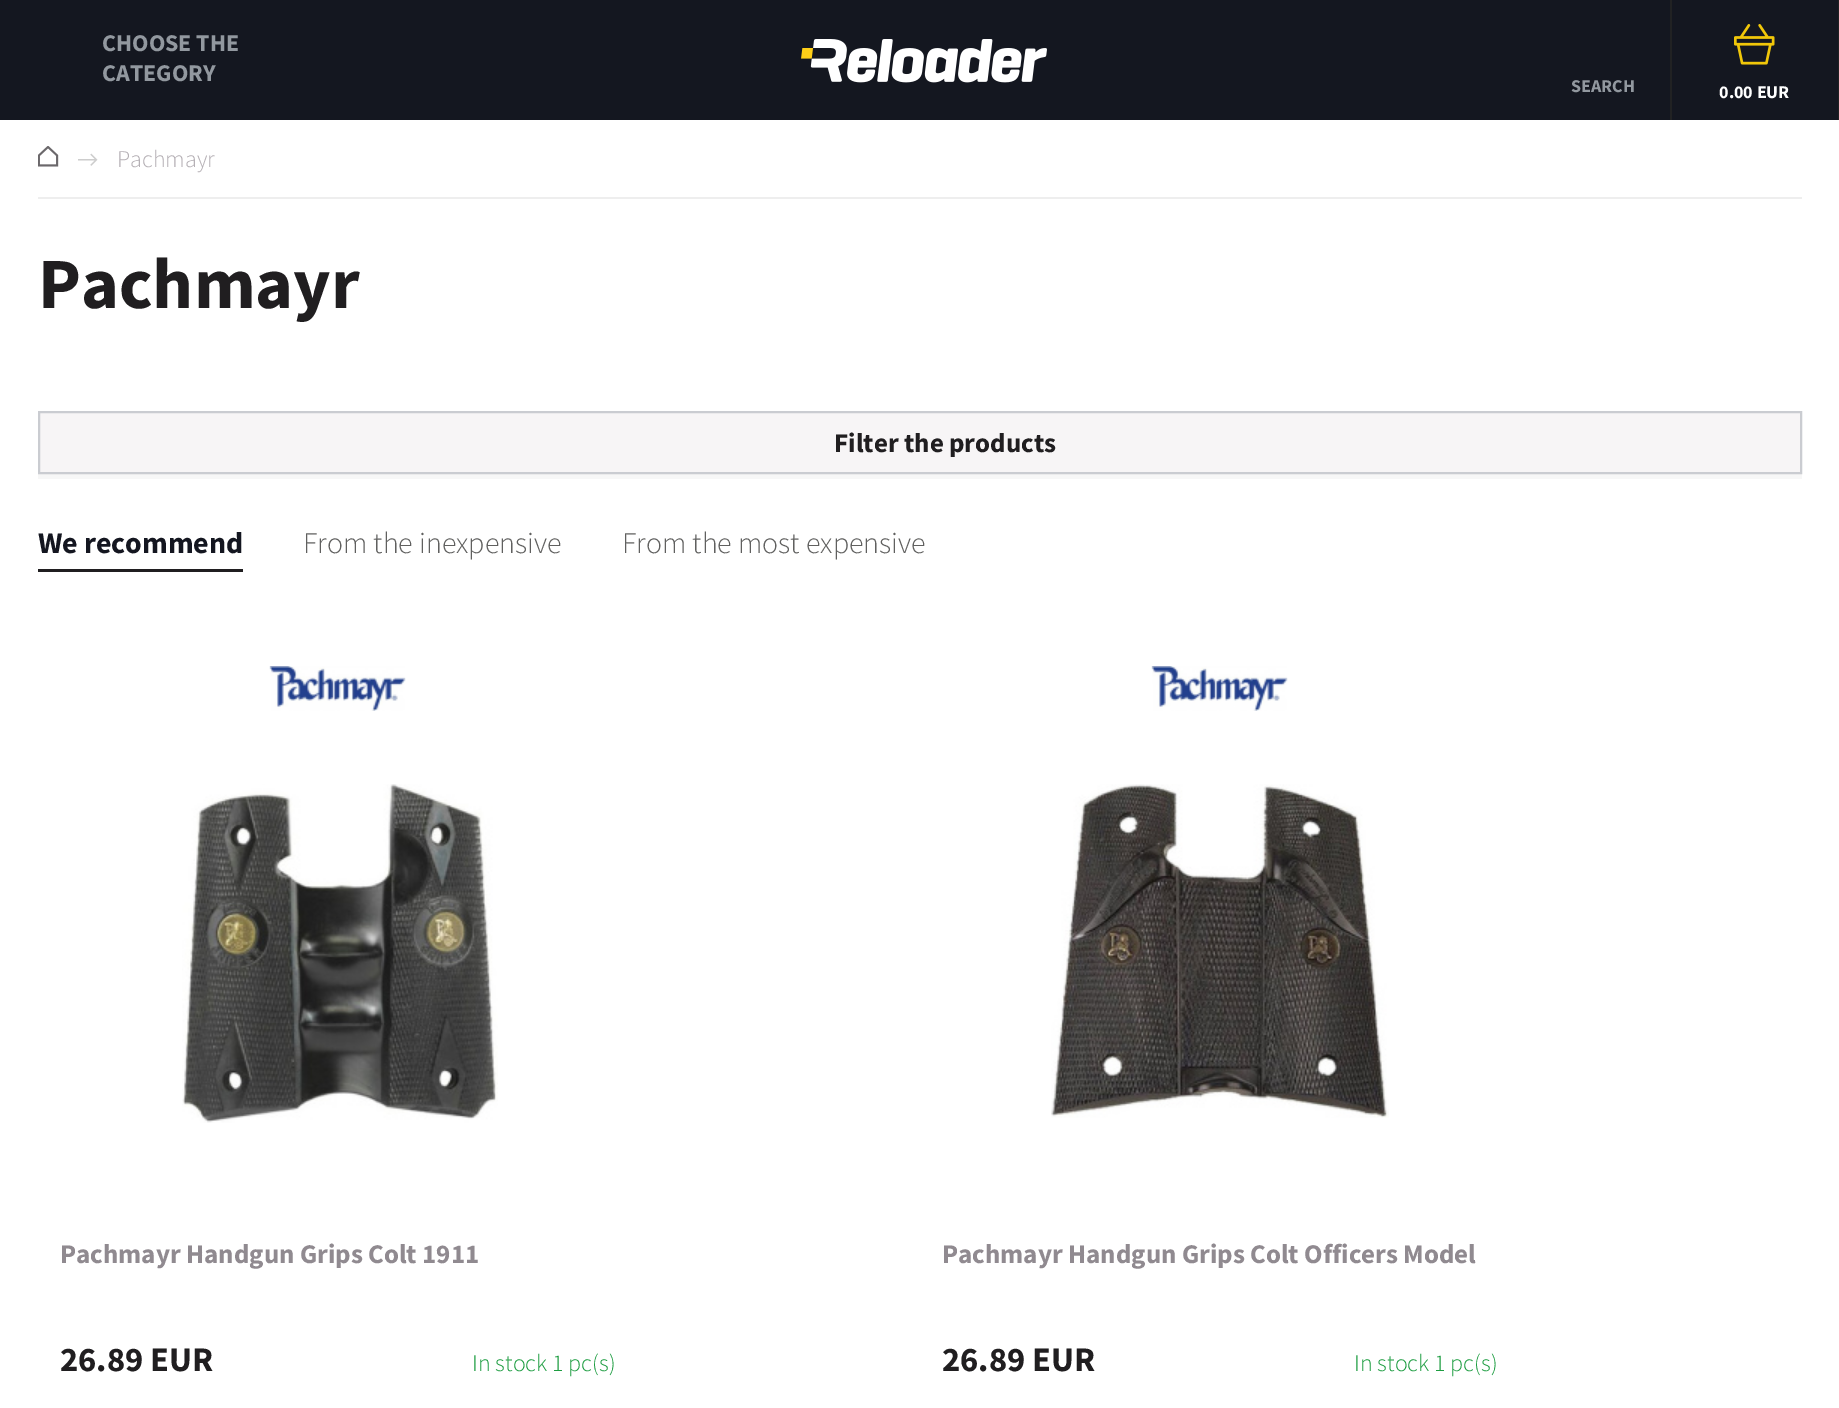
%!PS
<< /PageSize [1839 1408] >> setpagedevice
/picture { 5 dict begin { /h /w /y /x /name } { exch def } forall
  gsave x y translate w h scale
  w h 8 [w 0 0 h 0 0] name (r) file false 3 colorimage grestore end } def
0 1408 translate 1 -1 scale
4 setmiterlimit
1 setgray
0 0 1839 1408 rectfill
0.078 0.09 0.125 setrgbcolor
0 0 1838 120 rectfill
/SourceSansPro-Bold [24 0 0 -24 0 0] selectfont
0.573 0.596 0.624 setrgbcolor
102 51 moveto (CHOOSE THE) show
102 81 moveto (CATEGORY) show
(img1.rgb) 801 39 246 44 picture
/SourceSansPro-Bold [18 0 0 -18 0 0] selectfont
1571 92 moveto (SEARCH) show
0.129 0.133 0.137 setrgbcolor
1838 0 1 120 rectfill
1670 0 2 120 rectfill
(img2.rgb) 1734 24 41 41 picture
1 setgray
1719 98 moveto (0.00 EUR) show
0.933 setgray
38 197 1764 2 rectfill
(img3.rgb) 38 146 21 21 picture
(img4.rgb) 78 153 20 13 picture
/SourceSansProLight-Light [24 0 0 -24 0 0] selectfont
0.71 0.69 0.71 setrgbcolor
117 167 moveto (Pachmayr) show
/SourceSansPro-Bold [72 0 0 -72 0 0] selectfont
0.125 0.118 0.125 setrgbcolor
38 308 moveto (Pachmayr) show
0.969 setgray
newpath 38 474 moveto 38 479 lineto 1802 479 lineto 1802 416 lineto 1802 474 lineto closepath fill
0.969 0.961 0.965 setrgbcolor
newpath 39 412 moveto 1801 412 lineto 1801 473 lineto 39 473 lineto closepath gsave fill grestore
0.792 0.8 0.82 setrgbcolor
2 setlinewidth
stroke
/SourceSansPro-Bold [27 0 0 -27 0 0] selectfont
0.125 0.118 0.125 setrgbcolor
834 452 moveto (Filter the products) show
/SourceSansPro-Bold [30 0 0 -30 0 0] selectfont
0.078 0.086 0.125 setrgbcolor
38 553 moveto (We recommend) show
0.125 0.118 0.125 setrgbcolor
38 569 205 3 rectfill
/SourceSansProLight-Light [30 0 0 -30 0 0] selectfont
0.376 0.376 0.373 setrgbcolor
303 553 moveto (From the inexpensive) show
622 553 moveto (From the most expensive) show
(img5.rgb) 182 784 316 339 picture
(img6.rgb) 269 666 137 45 picture
/SourceSansPro-Bold [27 0 0 -27 0 0] selectfont
0.565 0.541 0.565 setrgbcolor
60 1263 moveto (Pachmayr Handgun Grips Colt 1911) show
/SourceSansPro-Bold [34.5 0 0 -34.5 0 0] selectfont
0.125 0.118 0.125 setrgbcolor
60 1371 moveto (26.89 EUR) show
/SourceSansProLight-Light [24 0 0 -24 0 0] selectfont
0.114 0.616 0.255 setrgbcolor
472 1371 moveto (In stock 1 pc\(s\)) show
(img7.rgb) 1051 784 338 334 picture
(img8.rgb) 1151 666 137 45 picture
/SourceSansPro-Bold [27 0 0 -27 0 0] selectfont
0.565 0.541 0.565 setrgbcolor
942 1263 moveto (Pachmayr Handgun Grips Colt Officers Model) show
/SourceSansPro-Bold [34.5 0 0 -34.5 0 0] selectfont
0.125 0.118 0.125 setrgbcolor
942 1371 moveto (26.89 EUR) show
/SourceSansProLight-Light [24 0 0 -24 0 0] selectfont
0.114 0.616 0.255 setrgbcolor
1354 1371 moveto (In stock 1 pc\(s\)) show
showpage
